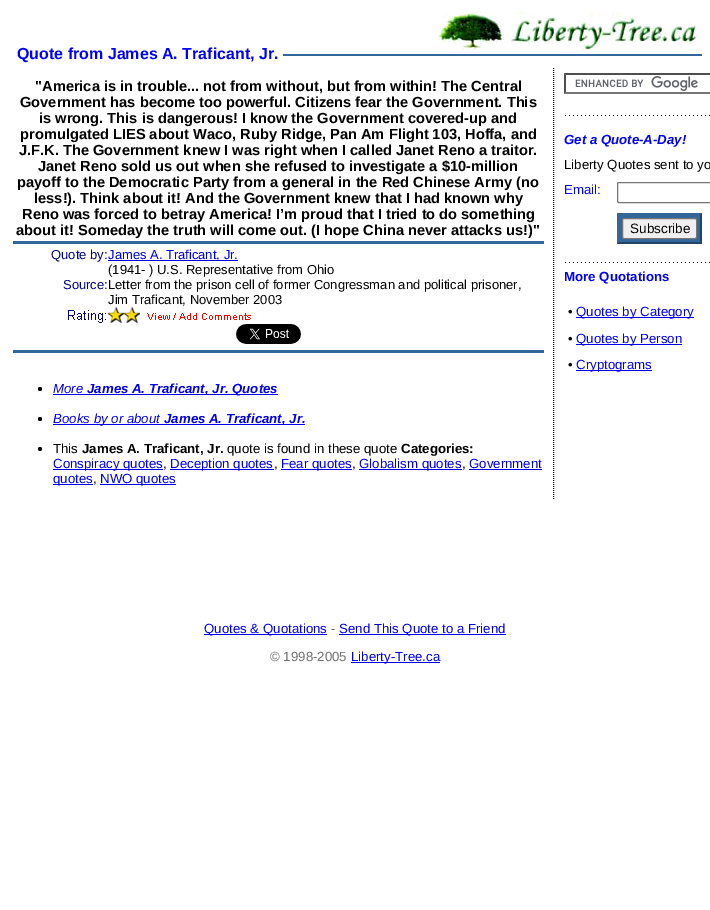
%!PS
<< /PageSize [710 910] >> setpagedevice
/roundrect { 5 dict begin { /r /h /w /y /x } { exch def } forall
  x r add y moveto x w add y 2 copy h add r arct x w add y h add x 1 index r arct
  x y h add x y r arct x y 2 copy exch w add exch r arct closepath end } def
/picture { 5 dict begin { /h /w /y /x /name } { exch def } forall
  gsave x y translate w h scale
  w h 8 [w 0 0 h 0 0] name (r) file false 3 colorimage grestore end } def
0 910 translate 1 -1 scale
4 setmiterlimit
1 setgray
0 0 710 910 rectfill
/LiberationSans-Bold [16 0 0 -16 0 0] selectfont
0 0 1 setrgbcolor
17 59 moveto (Quote from James A. Traficant, Jr.) show
0.2 0.4 0.6 setrgbcolor
283 54 419 2 rectfill
(img1.rgb) 438 12 260 38 picture
/LiberationSans-Bold [14.65 0 0 -14.65 0 0] selectfont
0 setgray
35 91 moveto ("America is in trouble... not from without, but from within! The Central) show
20 107 moveto (Government has become too powerful. Citizens fear the Government. This) show
39 123 moveto (is wrong. This is dangerous! I know the Government covered-up and) show
20 139 moveto (promulgated LIES about Waco, Ruby Ridge, Pan Am Flight 103, Hoffa, and) show
19 155 moveto (J.F.K. The Government knew I was right when I called Janet Reno a traitor.) show
38 171 moveto (Janet Reno sold us out when she refused to investigate a $10-million) show
17 187 moveto (payoff to the Democratic Party from a general in the Red Chinese Army \(no) show
34 203 moveto (less!\). Think about it! And the Government knew that I had known why) show
22 219 moveto (Reno was forced to betray America! I’m proud that I tried to do something) show
16 235 moveto (about it! Someday the truth will come out. \(I hope China never attacks us!\)") show
0.2 0.4 0.6 setrgbcolor
13 241 531 3 rectfill
13 350 531 3 rectfill
/LiberationSans-Regular [13 0 0 -13 0 0] selectfont
0 0 0.502 setrgbcolor
51 259 moveto (Quote by:) show
0 0 0.933 setrgbcolor
108 260 130 1 rectfill
108 259 moveto (James A. Traficant, Jr.) show
0 setgray
108 274 moveto (\(1941- \) U.S. Representative from Ohio) show
0 0 0.502 setrgbcolor
63 289 moveto (Source:) show
0 setgray
108 289 moveto (Letter from the prison cell of former Congressman and political prisoner,) show
108 304 moveto (Jim Traficant, November 2003) show
(img2.rgb) 68 310 38 13 picture
(img3.rgb) 108 307 32 16 picture
(img4.rgb) 147 313 104 7 picture
(img5.rgb) 236 324 65 20 picture
newpath 40 389 2 0 360 arc closepath fill
/LiberationSans-Italic [13.25 0 0 -13.25 0 0] selectfont
0 0 0.933 setrgbcolor
53 393 moveto (More) show
53 394 225 1 rectfill
/LiberationSans-BoldItalic [13.25 0 0 -13.25 0 0] selectfont
87 393 moveto (James A. Traficant, Jr. Quotes) show
0 setgray
newpath 40 419 2 0 360 arc closepath fill
0 0 0.933 setrgbcolor
53 424 252 1 rectfill
/LiberationSans-Italic [13.25 0 0 -13.25 0 0] selectfont
53 423 moveto (Books by or about) show
/LiberationSans-BoldItalic [13.25 0 0 -13.25 0 0] selectfont
164 423 moveto (James A. Traficant, Jr.) show
0 setgray
newpath 40 449 2 0 360 arc closepath fill
/LiberationSans-Regular [13.25 0 0 -13.25 0 0] selectfont
53 453 moveto (This) show
/LiberationSans-Bold [13.25 0 0 -13.25 0 0] selectfont
82 453 moveto (James A. Traficant, Jr.) show
/LiberationSans-Regular [13.25 0 0 -13.25 0 0] selectfont
227 453 moveto (quote is found in these quote) show
/LiberationSans-Bold [13.25 0 0 -13.25 0 0] selectfont
401 453 moveto (Categories:) show
0 0 0.933 setrgbcolor
53 469 110 1 rectfill
/LiberationSans-Regular [13.25 0 0 -13.25 0 0] selectfont
53 468 moveto (Conspiracy quotes) show
0 setgray
163 468 moveto (,) show
0 0 0.933 setrgbcolor
170 469 104 1 rectfill
170 468 moveto (Deception quotes) show
0 setgray
274 468 moveto (,) show
0 0 0.933 setrgbcolor
281 469 71 1 rectfill
281 468 moveto (Fear quotes) show
0 setgray
352 468 moveto (,) show
0 0 0.933 setrgbcolor
359 469 103 1 rectfill
359 468 moveto (Globalism quotes) show
0 setgray
462 468 moveto (,) show
0 0 0.933 setrgbcolor
469 468 moveto (Government) show
469 469 73 1 rectfill
53 484 40 1 rectfill
53 483 moveto (quotes) show
0 setgray
93 483 moveto (,) show
0 0 0.933 setrgbcolor
100 484 76 1 rectfill
100 483 moveto (NWO quotes) show
0 setgray
[1 1] 0 setdash
newpath 553.5 68 moveto 553.5 500 lineto stroke
(img6.rgb) 575 76 123 15 picture
0.31 setgray
newpath 564 73 moveto 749 73 lineto 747 75 lineto 566 75 lineto closepath fill
0.463 setgray
newpath 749 94 moveto 564 94 lineto 566 92 lineto 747 92 lineto closepath fill
0.31 setgray
newpath 564 94 moveto 564 73 lineto 566 75 lineto 566 92 lineto closepath fill
(img7.rgb) 565 115 145 1 picture
/LiberationSans-BoldItalic [13.25 0 0 -13.25 0 0] selectfont
0 0 1 setrgbcolor
564 144 moveto (Get a Quote-A-Day!) show
/LiberationSans-Regular [13.25 0 0 -13.25 0 0] selectfont
0 setgray
564 169 moveto (Liberty Quotes sent to yo) show
0 0 1 setrgbcolor
564 194 moveto (Email:) show
0.463 setgray
[] 0 setdash
617.5 182.5 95 20 1.5 roundrect stroke
0.2 0.4 0.6 setrgbcolor
617 213 85 31 rectfill
0.133 0.267 0.4 setrgbcolor
newpath 702 213 moveto 702 244 lineto 700 242 lineto 700 215 lineto closepath fill
newpath 702 244 moveto 617 244 lineto 619 242 lineto 700 242 lineto closepath fill
0.2 0.4 0.6 setrgbcolor
newpath 617 244 moveto 617 213 lineto 619 215 lineto 619 242 lineto closepath fill
0.937 setgray
622.5 218.5 74 20 1.5 roundrect gsave fill grestore
0.463 setgray
stroke
/LiberationSans-Regular [13.5 0 0 -13.5 0 0] selectfont
0 setgray
630 233 moveto (Subscribe) show
(img7.rgb) 565 262 145 1 picture
/LiberationSans-Bold [13.25 0 0 -13.25 0 0] selectfont
0 0 1 setrgbcolor
564 281 moveto (More Quotations) show
/LiberationSans-Regular [13.25 0 0 -13.25 0 0] selectfont
0 setgray
568 316 moveto (•) show
0 0 0.933 setrgbcolor
576 317 118 1 rectfill
576 316 moveto (Quotes by Category) show
0 setgray
568 343 moveto (•) show
0 0 0.933 setrgbcolor
576 344 106 1 rectfill
576 343 moveto (Quotes by Person) show
0 setgray
568 369 moveto (•) show
0 0 0.933 setrgbcolor
576 370 76 1 rectfill
576 369 moveto (Cryptograms) show
204 634 123 1 rectfill
204 633 moveto (Quotes & Quotations) show
0.435 setgray
331 633 moveto (-) show
0 0 0.933 setrgbcolor
339 634 167 1 rectfill
339 633 moveto (Send This Quote to a Friend) show
0.435 setgray
270 661 moveto (© 1998-2005) show
0 0 0.933 setrgbcolor
351 662 89 1 rectfill
351 661 moveto (Liberty-Tree.ca) show
showpage
